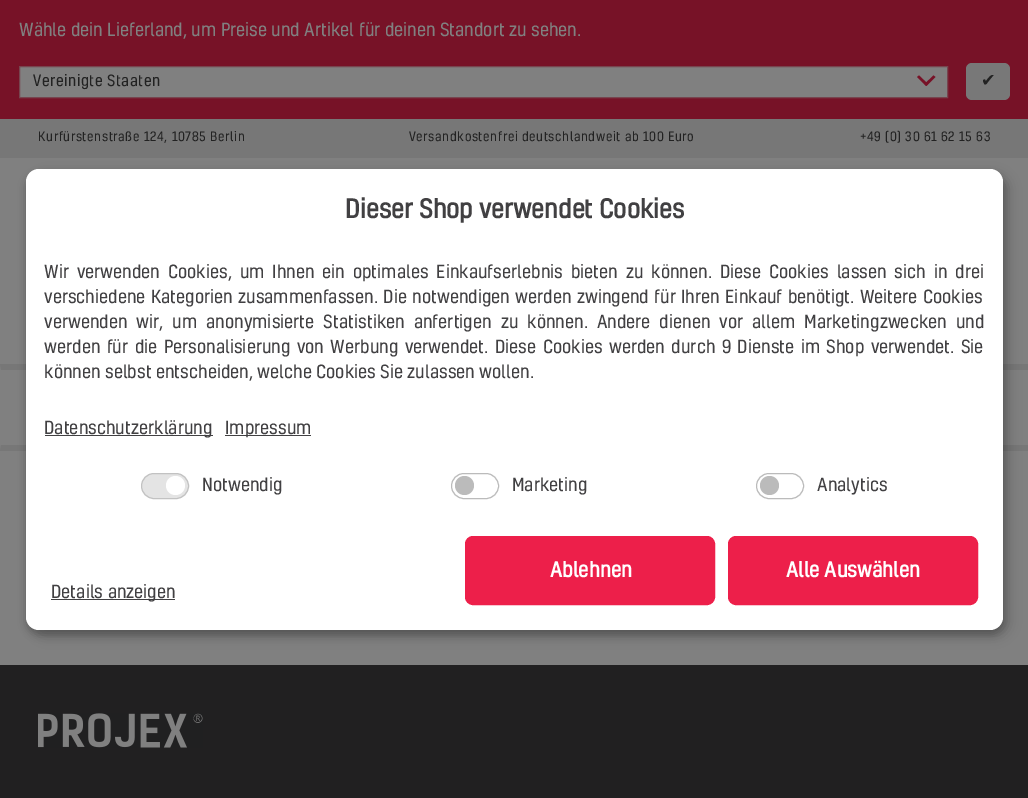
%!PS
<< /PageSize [1028 798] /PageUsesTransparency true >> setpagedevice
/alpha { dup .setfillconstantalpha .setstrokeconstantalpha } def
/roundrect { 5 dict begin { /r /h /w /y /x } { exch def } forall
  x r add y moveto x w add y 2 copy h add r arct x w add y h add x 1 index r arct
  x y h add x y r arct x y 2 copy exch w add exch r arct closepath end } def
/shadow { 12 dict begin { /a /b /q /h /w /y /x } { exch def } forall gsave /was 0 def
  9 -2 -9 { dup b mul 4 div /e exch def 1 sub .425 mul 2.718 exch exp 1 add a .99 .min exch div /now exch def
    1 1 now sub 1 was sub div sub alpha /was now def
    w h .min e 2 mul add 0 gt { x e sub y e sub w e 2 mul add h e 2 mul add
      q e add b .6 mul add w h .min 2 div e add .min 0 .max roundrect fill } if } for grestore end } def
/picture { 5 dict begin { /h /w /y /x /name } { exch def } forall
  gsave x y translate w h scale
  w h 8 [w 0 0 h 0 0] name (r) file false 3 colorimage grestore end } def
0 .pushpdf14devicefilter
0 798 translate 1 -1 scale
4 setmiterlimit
0.502 setgray
0 0 1028 798 rectfill
0.467 0.071 0.153 setrgbcolor
0 0 1028 119 rectfill
/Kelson-Regular [17.5 0 0 -17.5 0 0] selectfont
0.502 setgray
19 36 moveto (Wähle dein Lieferland, um Preise und Artikel für deinen Standort zu sehen.) show
newpath 19.5 66.5 moveto 947.5 66.5 lineto 947.5 97.5 lineto 19.5 97.5 lineto closepath gsave fill grestore
0.467 0.271 0.31 setrgbcolor
stroke
/Kelson-Regular [15 0 0 -15 0 0] selectfont
0.133 setgray
33 86 moveto 0.5 0 (Vereinigte Staaten) ashow
0.467 0.071 0.153 setrgbcolor
newpath 933.5 75.5 moveto 935.5 77 lineto 926.5 86 lineto 924.5 84 lineto closepath fill
newpath 917 77 moveto 919 75.5 lineto 928 84 lineto 926 86 lineto closepath fill
0.471 setgray
966 63 44 37 6 roundrect fill
/DejaVuSans-Regular [17.5 0 0 -17.5 0 0] selectfont
0.133 setgray
981 86 moveto (✔) show
0.467 setgray
0 119 1028 39 rectfill
/Kelson-Regular [12.5 0 0 -12.5 0 0] selectfont
0.133 setgray
38 141 moveto 0.6 0 (Kurfürstenstraße 124, 10785 Berlin) ashow
409 141 moveto 0.6 0 (Versandkostenfrei deutschlandweit ab 100 Euro) ashow
860 141 moveto 0.6 0 (+49 \(0\) 30 61 62 15 63) ashow
0.467 setgray
newpath 0 364 moveto 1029 364 lineto 1028 370 lineto 1 370 lineto closepath fill
newpath 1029 451 moveto 0 451 lineto 1 445 lineto 1028 445 lineto closepath fill
0.129 0.125 0.129 setrgbcolor
0 665 1028 133 rectfill
(img1.rgb) 38 713 165 35 picture
0 setgray
33 175 976 461 13 6 0.19 shadow
26 174 977 461 13 4 0.2 shadow
1 setgray
26 169 977 461 13 roundrect fill
/Kelson-Bold [25 0 0 -25 0 0] selectfont
0.255 0.251 0.259 setrgbcolor
345 218 moveto (Dieser Shop verwendet Cookies) show
/Kelson-Regular [17.5 0 0 -17.5 0 0] selectfont
44 278 moveto 3.5 0 32 (Wir verwenden Cookies, um Ihnen ein optimales Einkaufserlebnis bieten zu können. Diese Cookies lassen sich in drei) widthshow
44 303 moveto 1 0 32 (verschiedene Kategorien zusammenfassen. Die notwendigen werden zwingend für Ihren Einkauf benötigt. Weitere Cookies) widthshow
44 328 moveto 4.6 0 32 (verwenden wir, um anonymisierte Statistiken anfertigen zu können. Andere dienen vor allem Marketingzwecken und) widthshow
44 353 moveto 2.1 0 32 (werden für die Personalisierung von Werbung verwendet. Diese Cookies werden durch 9 Dienste im Shop verwendet. Sie) widthshow
44 378 moveto (können selbst entscheiden, welche Cookies Sie zulassen wollen.) show
45 435 168 1 rectfill
44 434 moveto (Datenschutzerklärung) show
225 435 86 1 rectfill
225 434 moveto (Impressum) show
0.894 setgray
141.5 473.5 47 25 12.5 roundrect gsave fill grestore
0.761 setgray
stroke
1 setgray
newpath 175.5 485.5 9.5 0 360 arc closepath fill
0.255 0.251 0.259 setrgbcolor
202 491 moveto (Notwendig) show
0.733 setgray
451.5 473.5 47 25 12.5 roundrect stroke
newpath 464.5 485.5 9.5 0 360 arc closepath fill
0.255 0.251 0.259 setrgbcolor
512 491 moveto (Marketing) show
0.733 setgray
756.5 473.5 47 25 12.5 roundrect stroke
newpath 769.5 485.5 9.5 0 360 arc closepath fill
0.255 0.251 0.259 setrgbcolor
817 491 moveto (Analytics) show
0.929 0.122 0.29 setrgbcolor
466.5 537.5 247 66 6.5 roundrect gsave fill grestore
3 setlinewidth
stroke
/Kelson-Bold [20 0 0 -20 0 0] selectfont
1 setgray
550 577 moveto (Ablehnen) show
0.929 0.122 0.29 setrgbcolor
729.5 537.5 247 66 6.5 roundrect gsave fill grestore
stroke
1 setgray
786 577 moveto (Alle Auswählen) show
0.255 0.251 0.259 setrgbcolor
51 599 124 1 rectfill
/Kelson-Regular [17.5 0 0 -17.5 0 0] selectfont
51 598 moveto (Details anzeigen) show
.poppdf14devicefilter showpage
